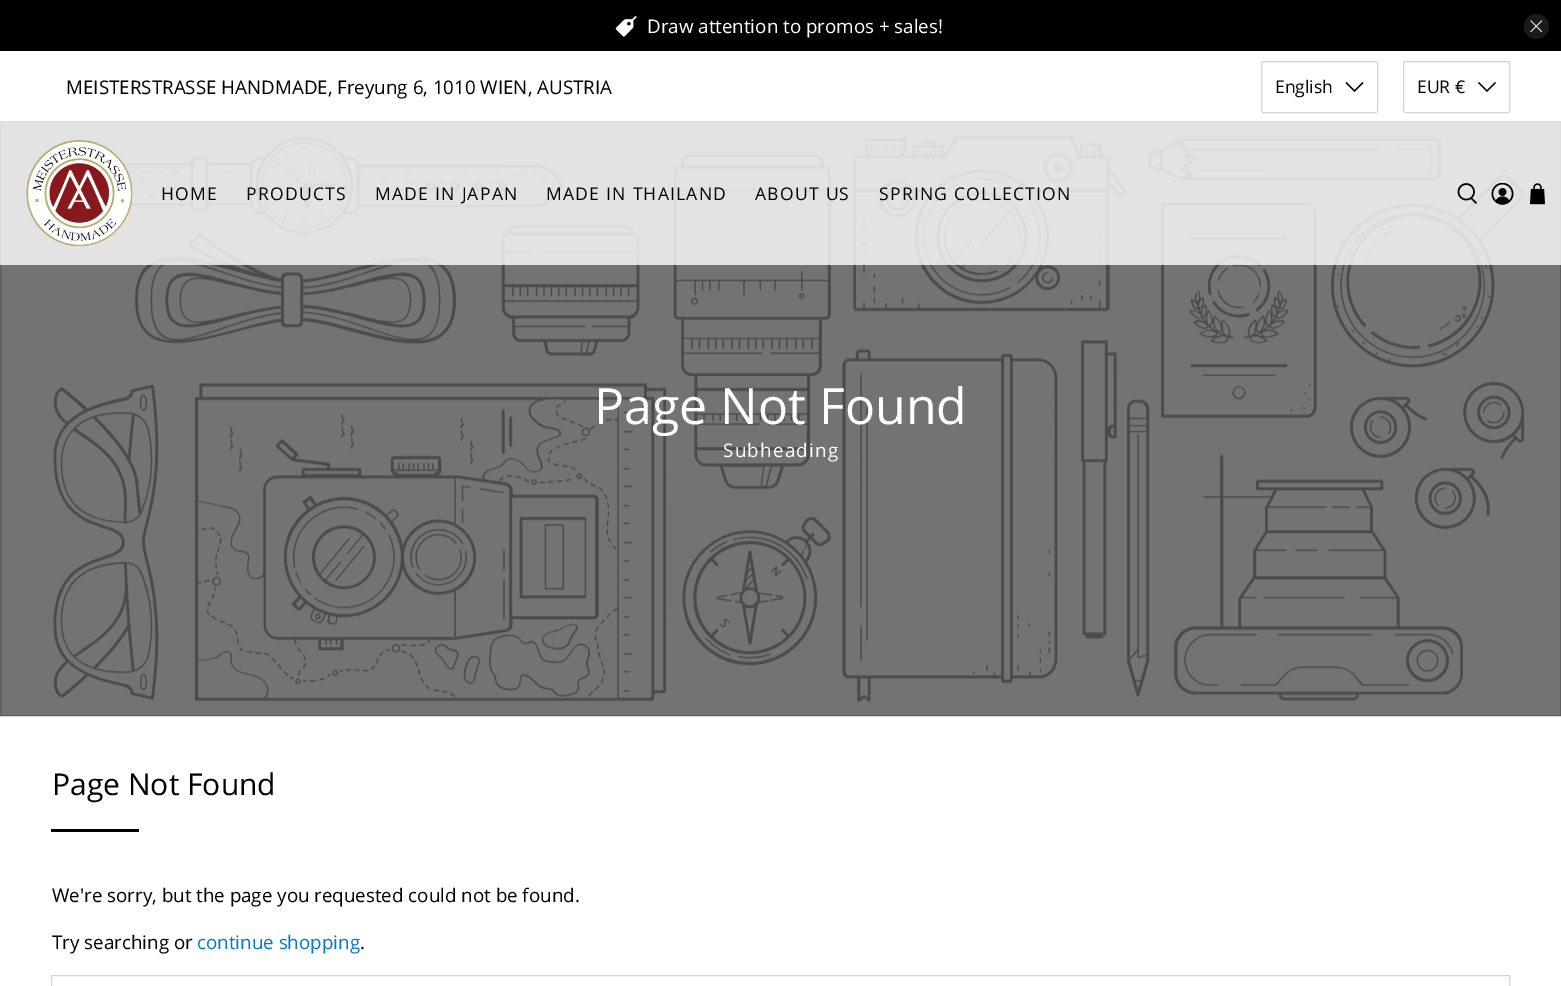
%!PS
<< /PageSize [1561 986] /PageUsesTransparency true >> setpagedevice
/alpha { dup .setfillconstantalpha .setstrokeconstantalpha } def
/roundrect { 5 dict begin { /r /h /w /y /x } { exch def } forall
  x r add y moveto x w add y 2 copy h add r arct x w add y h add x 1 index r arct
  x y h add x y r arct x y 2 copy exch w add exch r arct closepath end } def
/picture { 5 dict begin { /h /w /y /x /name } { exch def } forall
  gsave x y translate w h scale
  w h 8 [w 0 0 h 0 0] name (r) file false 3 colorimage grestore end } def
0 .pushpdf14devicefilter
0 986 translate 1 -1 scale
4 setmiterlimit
1 setgray
0 0 1561 986 rectfill
0 setgray
0 0 1561 51 rectfill
(img1.rgb) 615 15 22 22 picture
/OpenSans-Regular [18.75 0 0 -18.75 0 0] selectfont
1 setgray
647 33 moveto (Draw attention to promos + sales!) show
0.102 setgray
newpath 1536.5 26.5 12.5 0 360 arc closepath fill
(img2.rgb) 1530 20 13 13 picture
0 setgray
66 94 moveto (MEISTERSTRASSE HANDMADE, Freyung 6, 1010 WIEN, AUSTRIA) show
0.827 setgray
1261.5 61.5 116 51 2 roundrect stroke
/OpenSans-Regular [17.5 0 0 -17.5 0 0] selectfont
0 setgray
1275 93 moveto (English) show
newpath 1354.5 92 moveto 1345.5 83 lineto 1346.5 82 lineto 1354.5 90 lineto 1362.5 82 lineto 1363.5 83 lineto closepath fill
0.827 setgray
1403.5 61.5 106 51 2 roundrect stroke
0 setgray
1417 93 moveto (EUR €) show
newpath 1487 92 moveto 1478 83 lineto 1479 82 lineto 1487 90 lineto 1495 82 lineto 1496 83 lineto closepath fill
0.451 setgray
newpath 0.5 121.5 moveto 1560.5 121.5 lineto 1560.5 715.5 lineto 0.5 715.5 lineto closepath gsave fill grestore
0.361 setgray
stroke
(img7.rgb) 38 136 1487 567 picture
0.8 alpha
1 setgray
0 121 1561 144 rectfill
1 alpha
(img3.rgb) 26 140 107 107 picture
0 setgray
161 200 moveto 1.25 0 (HOME) ashow
246 200 moveto 1.25 0 (PRODUCTS) ashow
375 200 moveto 1.25 0 (MADE IN JAPAN) ashow
546 200 moveto 1.25 0 (MADE IN THAILAND) ashow
755 200 moveto 1.25 0 (ABOUT US) ashow
879 200 moveto 1.25 0 (SPRING COLLECTION) ashow
(img4.rgb) 1457 183 20 21 picture
(img5.rgb) 1491 183 23 22 picture
(img6.rgb) 1530 183 15 22 picture
/OpenSans-Regular [50 0 0 -50 0 0] selectfont
1 setgray
594 424 moveto (Page Not Found) show
/OpenSans-Regular [18.75 0 0 -18.75 0 0] selectfont
723 457 moveto 1.25 0 (Subheading) ashow
/OpenSans-Regular [30 0 0 -30 0 0] selectfont
0 setgray
52 795 moveto (Page Not Found) show
51 829 88 3 rectfill
/OpenSans-Regular [18.75 0 0 -18.75 0 0] selectfont
52 902 moveto (We're sorry, but the page you requested could not be found.) show
52 949 moveto (Try searching or) show
0 0.478 0.808 setrgbcolor
197 949 moveto (continue shopping) show
0 setgray
360 949 moveto (.) show
0.827 setgray
51.5 975.5 1458 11 rectstroke
.poppdf14devicefilter showpage
